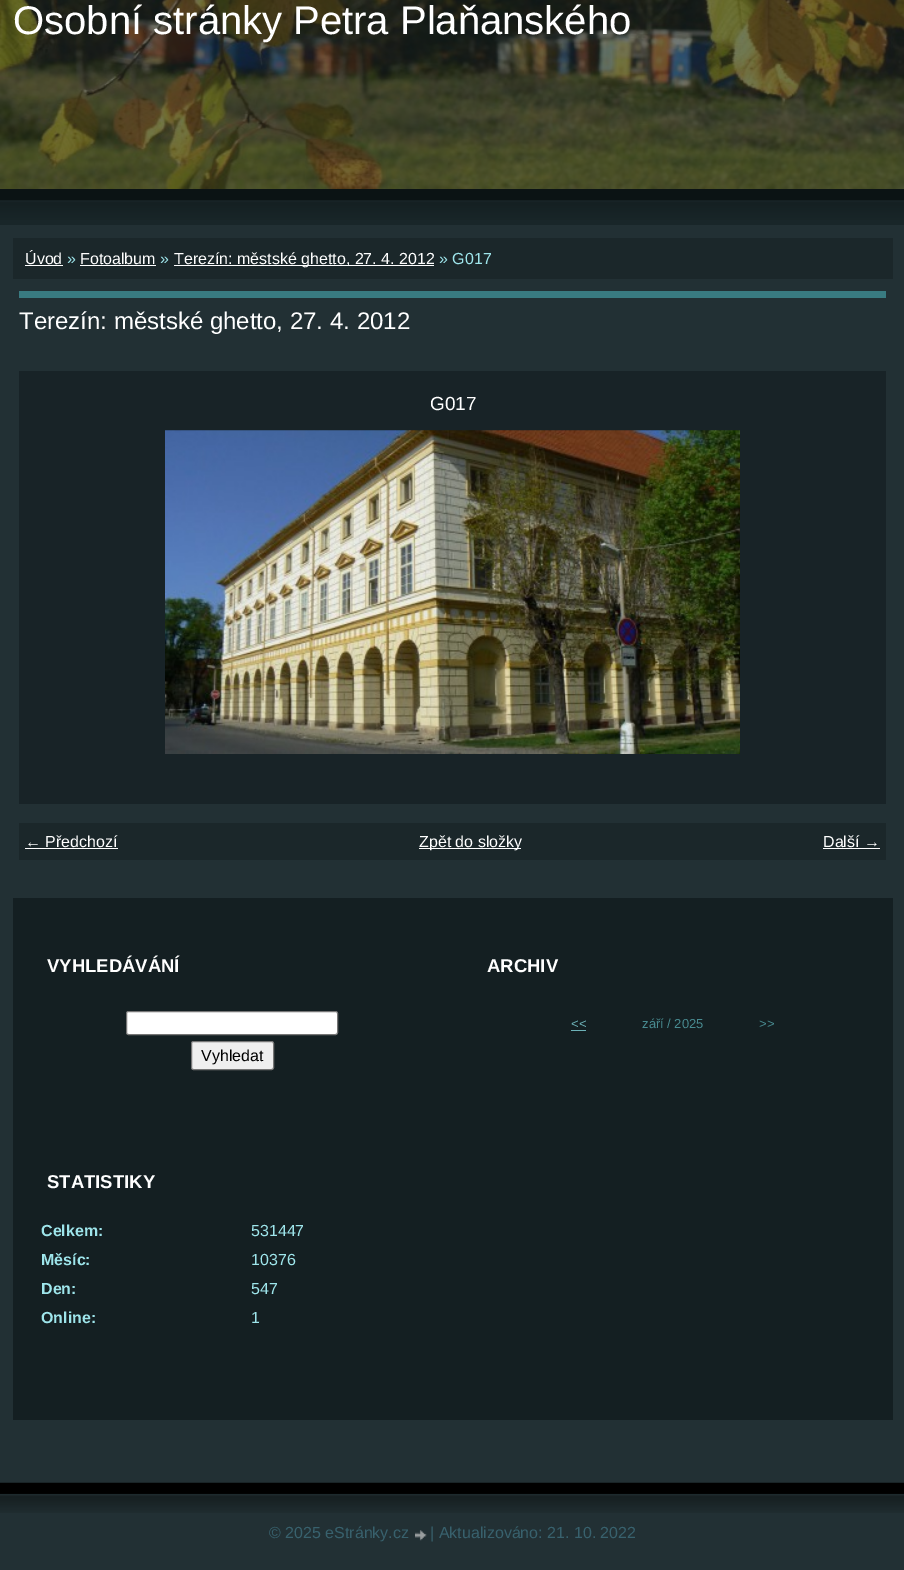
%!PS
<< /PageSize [904 1570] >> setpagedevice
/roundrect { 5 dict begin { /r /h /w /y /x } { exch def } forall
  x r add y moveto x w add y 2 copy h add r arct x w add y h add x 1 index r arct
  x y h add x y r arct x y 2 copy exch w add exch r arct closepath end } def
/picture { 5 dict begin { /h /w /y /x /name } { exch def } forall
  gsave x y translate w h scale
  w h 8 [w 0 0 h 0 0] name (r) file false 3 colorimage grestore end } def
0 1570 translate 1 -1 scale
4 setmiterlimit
0.133 0.188 0.204 setrgbcolor
0 0 904 1570 rectfill
0.098 0.149 0.161 setrgbcolor
0 220 904 5 rectfill
(img1.rgb) 0 189 904 31 picture
(img2.rgb) 0 0 904 189 picture
/LiberationSans-Regular [40 0 0 -40 0 0] selectfont
1 setgray
13 34 moveto (Osobní stránky Petra Plaňanského) show
0.106 0.153 0.165 setrgbcolor
13 238 880 41 rectfill
/LiberationSans-Regular [16 0 0 -16 0 0] selectfont
1 setgray
25 264 moveto (Úvod) show
25 265 38 1 rectfill
0.62 0.898 0.922 setrgbcolor
67 264 moveto (») show
1 setgray
80 264 moveto (Fotoalbum) show
80 265 76 1 rectfill
0.62 0.898 0.922 setrgbcolor
160 264 moveto (») show
1 setgray
174 265 260 1 rectfill
174 264 moveto (Terezín: městské ghetto, 27. 4. 2012) show
0.62 0.898 0.922 setrgbcolor
439 264 moveto (» G017) show
0.224 0.482 0.506 setrgbcolor
19 291 867 7 rectfill
/LiberationSans-Regular [24 0 0 -24 0 0] selectfont
1 setgray
19 329 moveto (Terezín: městské ghetto, 27. 4. 2012) show
0.094 0.137 0.153 setrgbcolor
19 371 867 433 rectfill
/LiberationSans-Regular [19 0 0 -19 0 0] selectfont
1 setgray
430 410 moveto (G017) show
(img3.rgb) 165 430 575 324 picture
0.106 0.153 0.165 setrgbcolor
19 823 867 37 rectfill
/LiberationSans-Regular [16 0 0 -16 0 0] selectfont
1 setgray
25 847 moveto (← Předchozí) show
25 848 93 1 rectfill
419 848 102 1 rectfill
419 847 moveto (Zpět do složky) show
823 847 moveto (Další →) show
823 848 57 1 rectfill
0.078 0.122 0.133 setrgbcolor
13 898 880 522 rectfill
/LiberationSans-Bold [18.5 0 0 -18.5 0 0] selectfont
1 setgray
47 972 moveto (VYHLEDÁVÁNÍ) show
126.5 1011.5 211 23 2 roundrect gsave fill grestore
0.463 setgray
stroke
0.937 setgray
191.5 1041.5 82 28 2 roundrect gsave fill grestore
0.463 setgray
stroke
/LiberationSans-Regular [16 0 0 -16 0 0] selectfont
0 setgray
201 1061 moveto (Vyhledat) show
/LiberationSans-Bold [18.5 0 0 -18.5 0 0] selectfont
1 setgray
487 972 moveto (ARCHIV) show
/LiberationSans-Regular [13 0 0 -13 0 0] selectfont
0.427 0.698 0.722 setrgbcolor
571 1028 moveto (<<) show
571 1030 15 1 rectfill
0.282 0.541 0.565 setrgbcolor
642 1028 moveto (září / 2025) show
759 1028 moveto (>>) show
/LiberationSans-Bold [18.5 0 0 -18.5 0 0] selectfont
1 setgray
47 1188 moveto (STATISTIKY) show
/LiberationSans-Bold [16 0 0 -16 0 0] selectfont
0.62 0.898 0.922 setrgbcolor
41 1236 moveto (Celkem:) show
/LiberationSans-Regular [16 0 0 -16 0 0] selectfont
251 1236 moveto (531447) show
/LiberationSans-Bold [16 0 0 -16 0 0] selectfont
41 1265 moveto (Měsíc:) show
/LiberationSans-Regular [16 0 0 -16 0 0] selectfont
251 1265 moveto (10376) show
/LiberationSans-Bold [16 0 0 -16 0 0] selectfont
41 1294 moveto (Den:) show
/LiberationSans-Regular [16 0 0 -16 0 0] selectfont
251 1294 moveto (547) show
/LiberationSans-Bold [16 0 0 -16 0 0] selectfont
41 1323 moveto (Online:) show
/LiberationSans-Regular [16 0 0 -16 0 0] selectfont
251 1323 moveto (1) show
(img4.rgb) 0 1482 904 31 picture
0.22 0.38 0.427 setrgbcolor
269 1538 moveto (© 2025 eStránky.cz) show
(img5.rgb) 415 1530 12 11 picture
430 1538 moveto (| Aktualizováno: 21. 10. 2022) show
showpage
